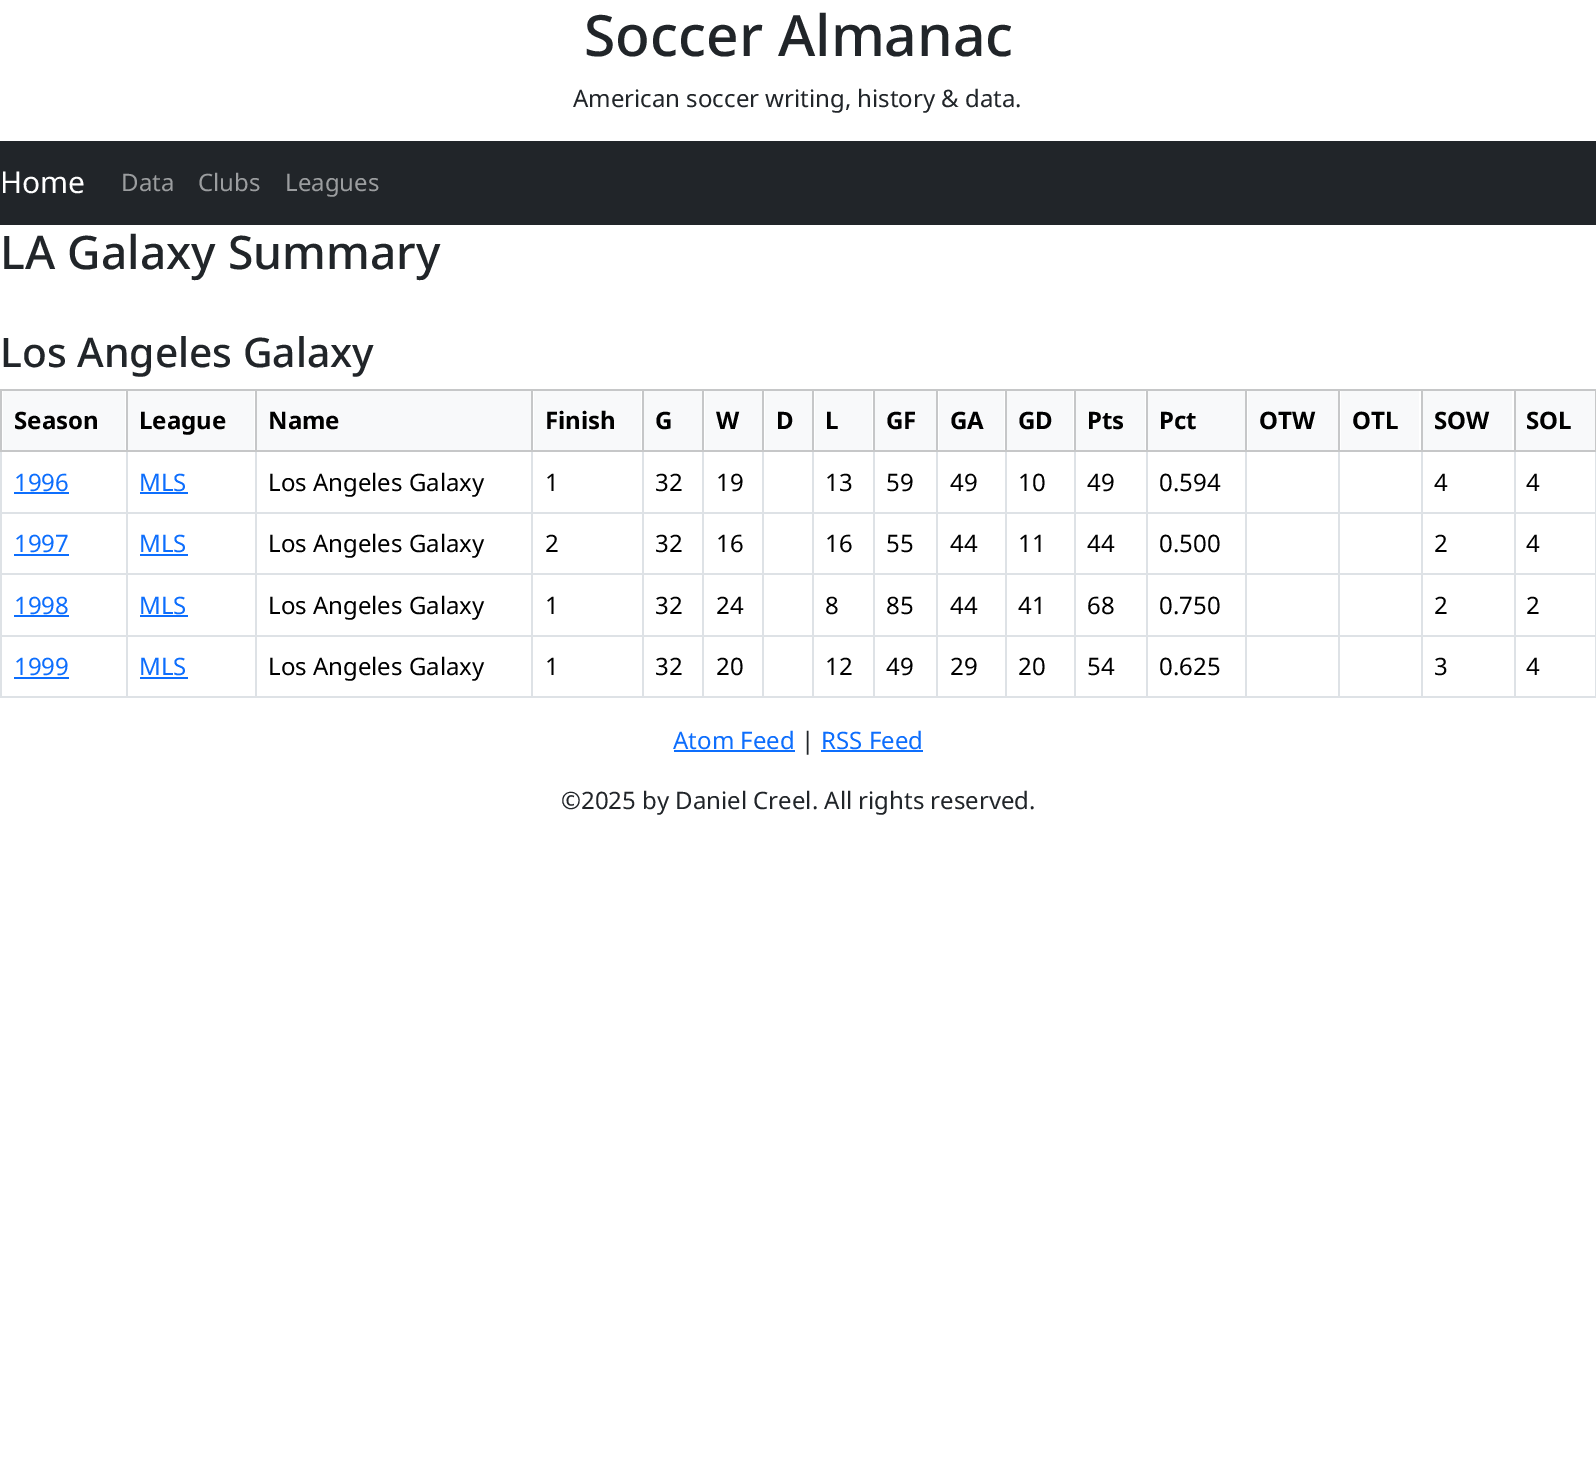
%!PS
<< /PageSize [1596 1476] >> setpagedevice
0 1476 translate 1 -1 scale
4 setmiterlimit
1 setgray
0 0 1596 1476 rectfill
/NotoSans-Medium [57 0 0 -57 0 0] selectfont
0.129 0.145 0.161 setrgbcolor
584 56 moveto (Soccer Almanac) show
/NotoSans-Regular [24 0 0 -24 0 0] selectfont
573 107 moveto (American soccer writing, history & data.) show
0 141 1596 84 rectfill
/NotoSans-Regular [30 0 0 -30 0 0] selectfont
1 setgray
0 193 moveto (Home) show
/NotoSans-Regular [24 0 0 -24 0 0] selectfont
0.608 0.616 0.624 setrgbcolor
121 191 moveto (Data) show
198 191 moveto (Clubs) show
285 191 moveto (Leagues) show
/NotoSans-Medium [46.25 0 0 -46.25 0 0] selectfont
0.129 0.145 0.161 setrgbcolor
0 269 moveto (LA Galaxy Summary) show
/NotoSans-Medium [40.75 0 0 -40.75 0 0] selectfont
0 367 moveto (Los Angeles Galaxy) show
0.776 0.78 0.784 setrgbcolor
0 389 1596 2 rectfill
0 450 1596 2 rectfill
0.973 0.976 0.98 setrgbcolor
3 391 122 59 rectfill
0.871 0.886 0.902 setrgbcolor
0 512 1596 2 rectfill
0 573 1596 2 rectfill
0 635 1596 2 rectfill
0 696 1596 2 rectfill
0 450 2 248 rectfill
0.776 0.78 0.784 setrgbcolor
0 389 2 63 rectfill
/NotoSans-Bold [24 0 0 -24 0 0] selectfont
0 setgray
14 429 moveto (Season) show
0.973 0.976 0.98 setrgbcolor
128 391 126 59 rectfill
0.871 0.886 0.902 setrgbcolor
126 450 2 248 rectfill
0.776 0.78 0.784 setrgbcolor
126 389 2 63 rectfill
0 setgray
139 429 moveto (League) show
0.973 0.976 0.98 setrgbcolor
257 391 274 59 rectfill
0.871 0.886 0.902 setrgbcolor
255 450 2 248 rectfill
0.776 0.78 0.784 setrgbcolor
255 389 2 63 rectfill
0 setgray
268 429 moveto (Name) show
0.973 0.976 0.98 setrgbcolor
534 391 107 59 rectfill
0.871 0.886 0.902 setrgbcolor
531 450 2 248 rectfill
0.776 0.78 0.784 setrgbcolor
531 389 2 63 rectfill
0 setgray
545 429 moveto (Finish) show
0.973 0.976 0.98 setrgbcolor
644 391 58 59 rectfill
0.871 0.886 0.902 setrgbcolor
642 450 2 248 rectfill
0.776 0.78 0.784 setrgbcolor
642 389 2 63 rectfill
0 setgray
655 429 moveto (G) show
0.973 0.976 0.98 setrgbcolor
705 391 57 59 rectfill
0.871 0.886 0.902 setrgbcolor
702 450 2 248 rectfill
0.776 0.78 0.784 setrgbcolor
702 389 2 63 rectfill
0 setgray
716 429 moveto (W) show
0.973 0.976 0.98 setrgbcolor
765 391 47 59 rectfill
0.871 0.886 0.902 setrgbcolor
762 450 2 248 rectfill
0.776 0.78 0.784 setrgbcolor
762 389 2 63 rectfill
0 setgray
776 429 moveto (D) show
0.973 0.976 0.98 setrgbcolor
815 391 57 59 rectfill
0.871 0.886 0.902 setrgbcolor
812 450 2 248 rectfill
0.776 0.78 0.784 setrgbcolor
812 389 2 63 rectfill
0 setgray
825 429 moveto (L) show
0.973 0.976 0.98 setrgbcolor
875 391 61 59 rectfill
0.871 0.886 0.902 setrgbcolor
873 450 2 248 rectfill
0.776 0.78 0.784 setrgbcolor
873 389 2 63 rectfill
0 setgray
886 429 moveto (GF) show
0.973 0.976 0.98 setrgbcolor
939 391 65 59 rectfill
0.871 0.886 0.902 setrgbcolor
936 450 2 248 rectfill
0.776 0.78 0.784 setrgbcolor
936 389 2 63 rectfill
0 setgray
950 429 moveto (GA) show
0.973 0.976 0.98 setrgbcolor
1007 391 66 59 rectfill
0.871 0.886 0.902 setrgbcolor
1005 450 2 248 rectfill
0.776 0.78 0.784 setrgbcolor
1005 389 2 63 rectfill
0 setgray
1018 429 moveto (GD) show
0.973 0.976 0.98 setrgbcolor
1076 391 69 59 rectfill
0.871 0.886 0.902 setrgbcolor
1074 450 2 248 rectfill
0.776 0.78 0.784 setrgbcolor
1074 389 2 63 rectfill
0 setgray
1087 429 moveto (Pts) show
0.973 0.976 0.98 setrgbcolor
1148 391 97 59 rectfill
0.871 0.886 0.902 setrgbcolor
1146 450 2 248 rectfill
0.776 0.78 0.784 setrgbcolor
1146 389 2 63 rectfill
0 setgray
1159 429 moveto (Pct) show
0.973 0.976 0.98 setrgbcolor
1248 391 90 59 rectfill
0.871 0.886 0.902 setrgbcolor
1245 450 2 248 rectfill
0.776 0.78 0.784 setrgbcolor
1245 389 2 63 rectfill
0 setgray
1259 429 moveto (OTW) show
0.973 0.976 0.98 setrgbcolor
1341 391 78 59 rectfill
0.871 0.886 0.902 setrgbcolor
1338 450 2 248 rectfill
0.776 0.78 0.784 setrgbcolor
1338 389 2 63 rectfill
0 setgray
1352 429 moveto (OTL) show
0.973 0.976 0.98 setrgbcolor
1423 391 89 59 rectfill
0.871 0.886 0.902 setrgbcolor
1421 450 2 248 rectfill
0.776 0.78 0.784 setrgbcolor
1421 389 2 63 rectfill
0 setgray
1434 429 moveto (SOW) show
0.973 0.976 0.98 setrgbcolor
1516 391 79 59 rectfill
0.871 0.886 0.902 setrgbcolor
1595 450 1 248 rectfill
0.776 0.78 0.784 setrgbcolor
1595 389 1 63 rectfill
0.871 0.886 0.902 setrgbcolor
1514 450 2 248 rectfill
0.776 0.78 0.784 setrgbcolor
1514 389 2 63 rectfill
0 setgray
1526 429 moveto (SOL) show
/NotoSans-Regular [24 0 0 -24 0 0] selectfont
0.051 0.431 0.992 setrgbcolor
14 491 moveto (1996) show
14 492 55 2 rectfill
139 491 moveto (MLS) show
140 492 48 2 rectfill
0 setgray
268 491 moveto (Los Angeles Galaxy) show
545 491 moveto (1) show
655 491 moveto (32) show
716 491 moveto (19) show
825 491 moveto (13) show
886 491 moveto (59) show
950 491 moveto (49) show
1018 491 moveto (10) show
1087 491 moveto (49) show
1159 491 moveto (0.594) show
1434 491 moveto (4) show
1526 491 moveto (4) show
0.051 0.431 0.992 setrgbcolor
14 552 moveto (1997) show
14 554 55 2 rectfill
139 552 moveto (MLS) show
140 554 48 2 rectfill
0 setgray
268 552 moveto (Los Angeles Galaxy) show
545 552 moveto (2) show
655 552 moveto (32) show
716 552 moveto (16) show
825 552 moveto (16) show
886 552 moveto (55) show
950 552 moveto (44) show
1018 552 moveto (11) show
1087 552 moveto (44) show
1159 552 moveto (0.500) show
1434 552 moveto (2) show
1526 552 moveto (4) show
0.051 0.431 0.992 setrgbcolor
14 614 moveto (1998) show
14 615 55 2 rectfill
139 614 moveto (MLS) show
140 615 48 2 rectfill
0 setgray
268 614 moveto (Los Angeles Galaxy) show
545 614 moveto (1) show
655 614 moveto (32) show
716 614 moveto (24) show
825 614 moveto (8) show
886 614 moveto (85) show
950 614 moveto (44) show
1018 614 moveto (41) show
1087 614 moveto (68) show
1159 614 moveto (0.750) show
1434 614 moveto (2) show
1526 614 moveto (2) show
0.051 0.431 0.992 setrgbcolor
14 675 moveto (1999) show
14 677 55 2 rectfill
139 675 moveto (MLS) show
140 677 48 2 rectfill
0 setgray
268 675 moveto (Los Angeles Galaxy) show
545 675 moveto (1) show
655 675 moveto (32) show
716 675 moveto (20) show
825 675 moveto (12) show
886 675 moveto (49) show
950 675 moveto (29) show
1018 675 moveto (20) show
1087 675 moveto (54) show
1159 675 moveto (0.625) show
1434 675 moveto (3) show
1526 675 moveto (4) show
0.051 0.431 0.992 setrgbcolor
673 749 moveto (Atom Feed) show
674 750 121 2 rectfill
0.129 0.145 0.161 setrgbcolor
801 749 moveto (|) show
0.051 0.431 0.992 setrgbcolor
821 749 moveto (RSS Feed) show
821 750 102 2 rectfill
0.129 0.145 0.161 setrgbcolor
561 809 moveto (©2025 by Daniel Creel. All rights reserved.) show
showpage
